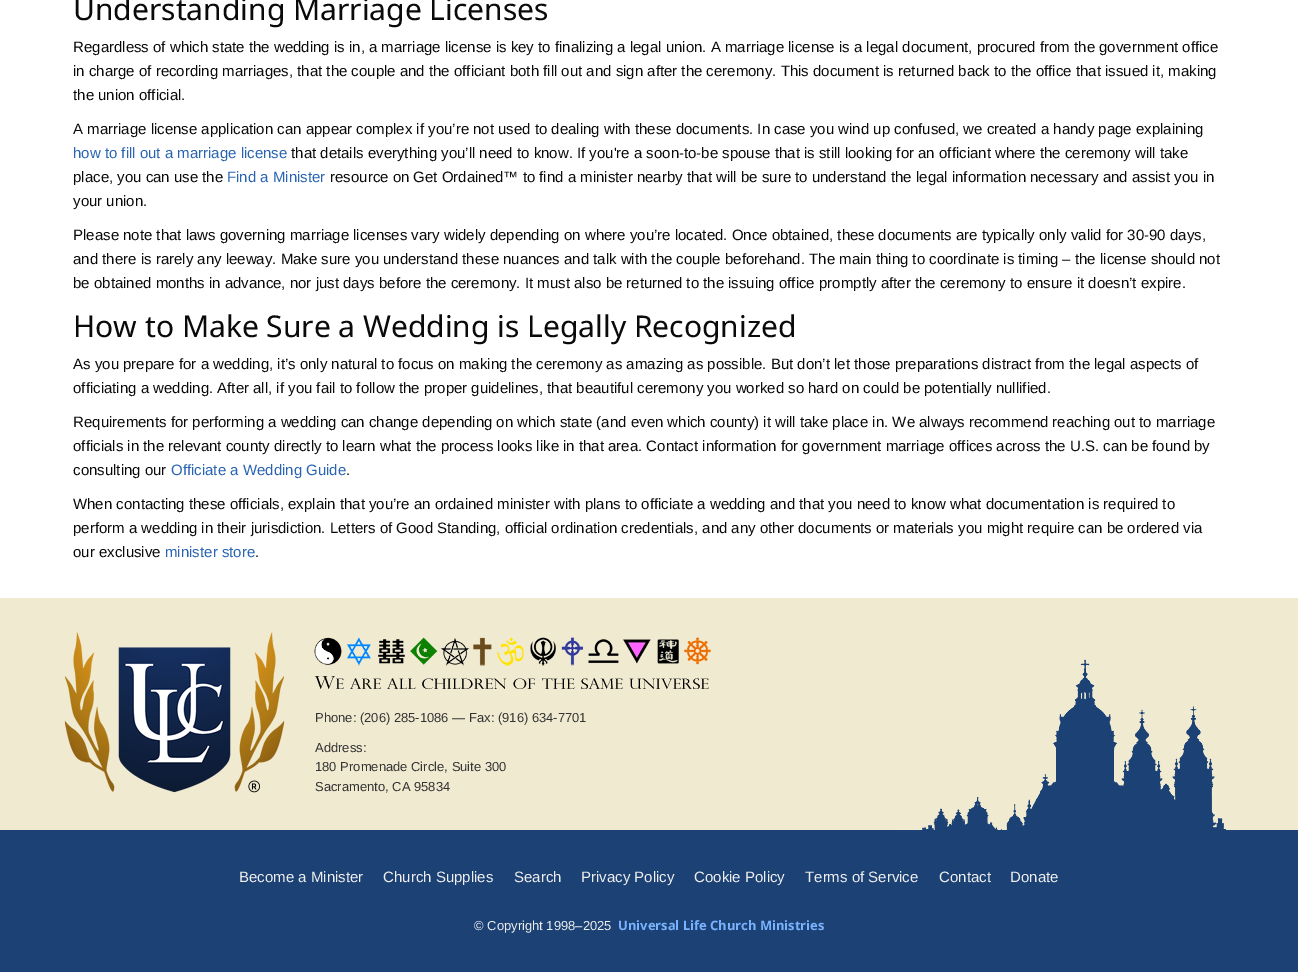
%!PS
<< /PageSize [1298 972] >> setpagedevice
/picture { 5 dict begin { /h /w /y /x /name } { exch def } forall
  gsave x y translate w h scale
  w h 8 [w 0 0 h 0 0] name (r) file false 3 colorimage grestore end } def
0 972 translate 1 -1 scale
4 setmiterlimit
1 setgray
0 0 1298 972 rectfill
/NotoSans-Regular [30 0 0 -30 0 0] selectfont
0.039 setgray
73 20 moveto (Understanding Marriage Licenses) show
/LiberationSans-Regular [15 0 0 -15 0 0] selectfont
73 52 moveto (Regardless of which state the wedding is in, a marriage license is key to finalizing a legal union. A marriage license is a legal document, procured from the government office) show
73 76 moveto (in charge of recording marriages, that the couple and the officiant both fill out and sign after the ceremony. This document is returned back to the office that issued it, making) show
73 100 moveto (the union official.) show
73 134 moveto (A marriage license application can appear complex if you’re not used to dealing with these documents. In case you wind up confused, we created a handy page explaining) show
0.161 0.392 0.702 setrgbcolor
73 158 moveto (how to fill out a marriage license) show
0.039 setgray
291 158 moveto (that details everything you’ll need to know. If you're a soon-to-be spouse that is still looking for an officiant where the ceremony will take) show
73 182 moveto (place, you can use the) show
0.161 0.392 0.702 setrgbcolor
227 182 moveto (Find a Minister) show
0.039 setgray
330 182 moveto (resource on Get Ordained™ to find a minister nearby that will be sure to understand the legal information necessary and assist you in) show
73 206 moveto (your union.) show
73 240 moveto (Please note that laws governing marriage licenses vary widely depending on where you’re located. Once obtained, these documents are typically only valid for 30-90 days,) show
73 264 moveto (and there is rarely any leeway. Make sure you understand these nuances and talk with the couple beforehand. The main thing to coordinate is timing – the license should not) show
73 288 moveto (be obtained months in advance, nor just days before the ceremony. It must also be returned to the issuing office promptly after the ceremony to ensure it doesn’t expire.) show
/NotoSans-Regular [30 0 0 -30 0 0] selectfont
73 337 moveto (How to Make Sure a Wedding is Legally Recognized) show
/LiberationSans-Regular [15 0 0 -15 0 0] selectfont
73 369 moveto (As you prepare for a wedding, it’s only natural to focus on making the ceremony as amazing as possible. But don’t let those preparations distract from the legal aspects of) show
73 393 moveto (officiating a wedding. After all, if you fail to follow the proper guidelines, that beautiful ceremony you worked so hard on could be potentially nullified.) show
73 427 moveto (Requirements for performing a wedding can change depending on which state \(and even which county\) it will take place in. We always recommend reaching out to marriage) show
73 451 moveto (officials in the relevant county directly to learn what the process looks like in that area. Contact information for government marriage offices across the U.S. can be found by) show
73 475 moveto (consulting our) show
0.161 0.392 0.702 setrgbcolor
171 475 moveto (Officiate a Wedding Guide) show
0.039 setgray
346 475 moveto (.) show
73 509 moveto (When contacting these officials, explain that you’re an ordained minister with plans to officiate a wedding and that you need to know what documentation is required to) show
73 533 moveto (perform a wedding in their jurisdiction. Letters of Good Standing, official ordination credentials, and any other documents or materials you might require can be ordered via) show
73 557 moveto (our exclusive) show
0.161 0.392 0.702 setrgbcolor
165 557 moveto (minister store) show
0.039 setgray
255 557 moveto (.) show
0.941 0.918 0.82 setrgbcolor
0 598 1298 232 rectfill
(img1.rgb) 64 632 221 161 picture
(img2.rgb) 314 637 397 52 picture
/LiberationSans-Regular [13 0 0 -13 0 0] selectfont
0.2 setgray
315 722 moveto (Phone: \(206\) 285-1086 — Fax: \(916\) 634-7701) show
315 752 moveto (Address:) show
315 771 moveto (180 Promenade Circle, Suite 300) show
315 791 moveto (Sacramento, CA 95834) show
0.11 0.255 0.455 setrgbcolor
0 830 1298 142 rectfill
(img3.rgb) 893 659 348 173 picture
/LiberationSans-Regular [15 0 0 -15 0 0] selectfont
0.933 setgray
239 882 moveto (Become a Minister) show
383 882 moveto (Church Supplies) show
514 882 moveto (Search) show
581 882 moveto (Privacy Policy) show
694 882 moveto (Cookie Policy) show
805 882 moveto (Terms of Service) show
939 882 moveto (Contact) show
1010 882 moveto (Donate) show
/LiberationSans-Regular [13 0 0 -13 0 0] selectfont
474 930 moveto (© Copyright 1998–2025) show
/NotoSans-Bold [13 0 0 -13 0 0] selectfont
0.475 0.702 1 setrgbcolor
618 930 moveto (Universal Life Church Ministries) show
showpage
